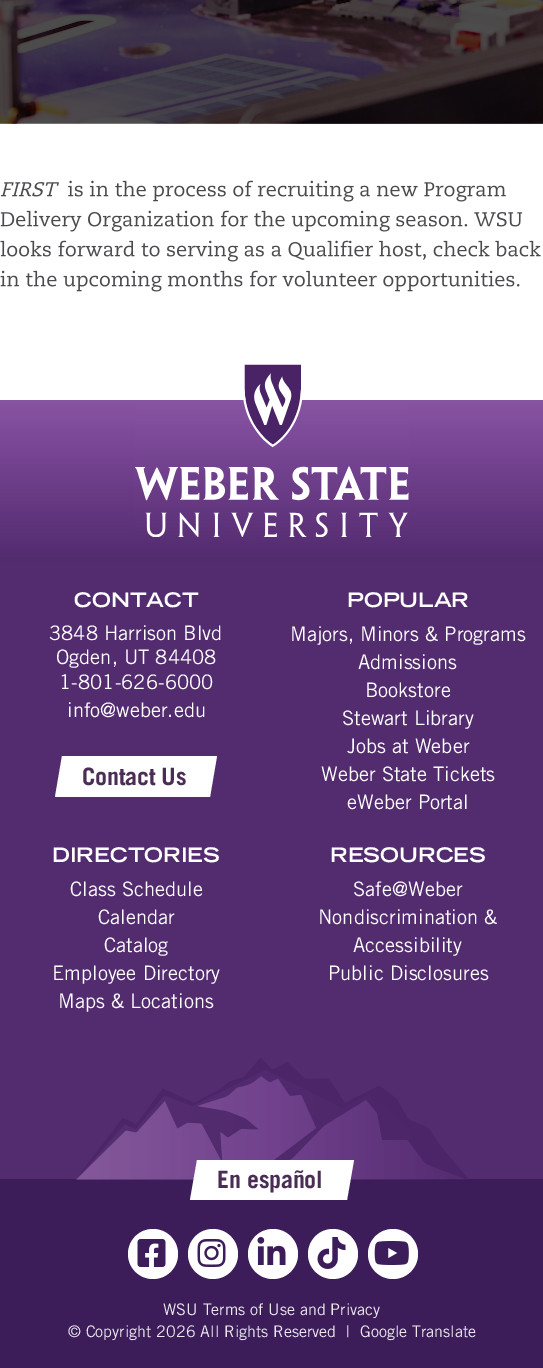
%!PS
<< /PageSize [543 1368] >> setpagedevice
/picture { 5 dict begin { /h /w /y /x /name } { exch def } forall
  gsave x y translate w h scale
  w h 8 [w 0 0 h 0 0] name (r) file false 3 colorimage grestore end } def
0 1368 translate 1 -1 scale
4 setmiterlimit
1 setgray
0 0 543 1368 rectfill
(img1.rgb) 0 0 543 124 picture
(img2.rgb) 0 182 59 15 picture
(img3.rgb) 68 180 438 22 picture
(img4.rgb) 0 210 523 22 picture
(img5.rgb) 0 240 541 22 picture
(img6.rgb) 0 270 520 22 picture
gsave
0 400 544 161 rectclip
gsave newpath 275 356 moveto 166 356 67 372 0 400 curveto 0 561 lineto 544 561 lineto 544 400 lineto 476 372 383 356 275 356 curveto closepath clip newpath
<< /ShadingType 2 /ColorSpace /DeviceRGB /Coords [272 311 272 589] /Extend [true true] /Function << /FunctionType 3 /Domain [0 1] /Functions [<< /FunctionType 2 /Domain [0 1] /C0 [0.635 0.459 0.702] /C1 [0.506 0.302 0.616] /N 1 >> << /FunctionType 2 /Domain [0 1] /C0 [0.506 0.302 0.616] /C1 [0.286 0.137 0.396] /N 1 >>] /Bounds [0.4] /Encode [0 1 0 1] >> >> shfill grestore
grestore
(img7.rgb) 135 364 274 173 picture
0.325 0.169 0.435 setrgbcolor
0 561 543 618 rectfill
/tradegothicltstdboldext-Bold [20 0 0 -20 0 0] selectfont
1 setgray
74 607 moveto (CONTACT) show
/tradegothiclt-Regular [20 0 0 -20 0 0] selectfont
49 640 moveto (3848 Harrison Blvd) show
56 664 moveto (Ogden, UT 84408) show
59 689 moveto (1-801-626-6000) show
67 717 moveto (info@weber.edu) show
newpath 62 756 moveto 217 756 lineto 210 797 lineto 55 797 lineto closepath fill
/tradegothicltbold-Bold [24 0 0 -24 0 0] selectfont
0.29 0.173 0.329 setrgbcolor
82 785 moveto -0.25 0 (Contact Us) ashow
/tradegothicltstdboldext-Bold [20 0 0 -20 0 0] selectfont
1 setgray
347 607 moveto (POPULAR) show
/tradegothiclt-Regular [20 0 0 -20 0 0] selectfont
290 641 moveto (Majors, Minors & Programs) show
358 669 moveto (Admissions) show
365 697 moveto (Bookstore) show
342 725 moveto (Stewart Library) show
347 753 moveto (Jobs at Weber) show
321 781 moveto (Weber State Tickets) show
347 809 moveto (eWeber Portal) show
/tradegothicltstdboldext-Bold [20 0 0 -20 0 0] selectfont
52 862 moveto (DIRECTORIES) show
/tradegothiclt-Regular [20 0 0 -20 0 0] selectfont
70 896 moveto (Class Schedule) show
98 924 moveto (Calendar) show
104 952 moveto (Catalog) show
52 980 moveto (Employee Directory) show
58 1008 moveto (Maps & Locations) show
/tradegothicltstdboldext-Bold [20 0 0 -20 0 0] selectfont
330 862 moveto (RESOURCES) show
/tradegothiclt-Regular [20 0 0 -20 0 0] selectfont
353 896 moveto (Safe@Weber) show
318 924 moveto (Nondiscrimination &) show
353 952 moveto (Accessibility) show
328 980 moveto (Public Disclosures) show
0.235 0.114 0.353 setrgbcolor
0 1179 543 189 rectfill
(img8.rgb) 76 1058 393 122 picture
1 setgray
newpath 197 1160 moveto 354 1160 lineto 347 1200 lineto 190 1200 lineto closepath fill
/tradegothicltbold-Bold [24 0 0 -24 0 0] selectfont
0.29 0.173 0.329 setrgbcolor
217 1188 moveto -0.25 0 (En español) ashow
1 setgray
newpath 153 1254 25 0 360 arc closepath fill
(img9.rgb) 137 1239 29 28 picture
newpath 213 1254 25 0 360 arc closepath fill
(img10.rgb) 197 1239 29 28 picture
newpath 273 1254 25 0 360 arc closepath fill
(img11.rgb) 257 1237 29 28 picture
newpath 333 1254 25 0 360 arc closepath fill
(img12.rgb) 317 1237 29 32 picture
newpath 393 1254 25 0 360 arc closepath fill
(img13.rgb) 374 1241 35 24 picture
/tradegothiclt-Regular [16 0 0 -16 0 0] selectfont
0.925 0.91 0.937 setrgbcolor
163 1315 moveto (WSU Terms of Use and Privacy) show
68 1337 moveto (© Copyright 2026 All Rights Reserved  |) show
360 1337 moveto (Google Translate) show
showpage
